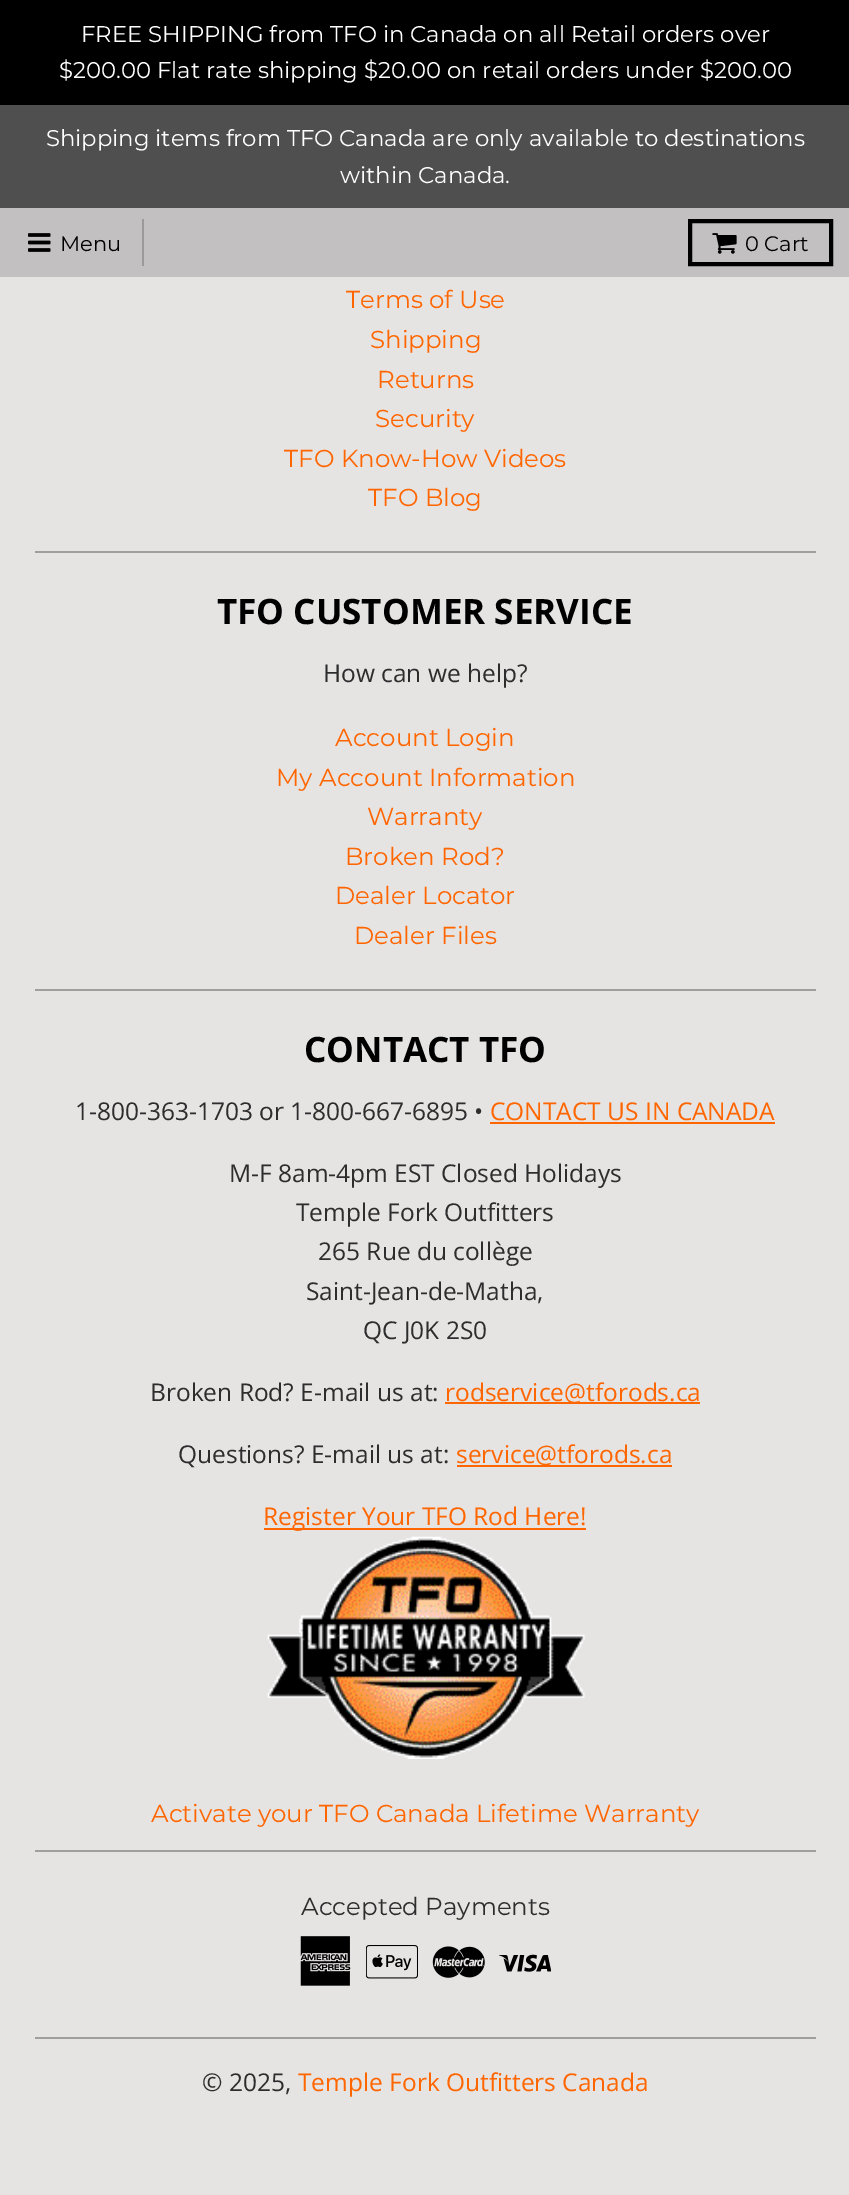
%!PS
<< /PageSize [849 2195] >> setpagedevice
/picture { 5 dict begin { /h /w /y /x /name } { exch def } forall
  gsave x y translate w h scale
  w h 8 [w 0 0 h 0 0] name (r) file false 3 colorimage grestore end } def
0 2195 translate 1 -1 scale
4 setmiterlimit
0.902 0.89 0.89 setrgbcolor
0 0 849 2195 rectfill
0 setgray
0 0 849 105 rectfill
/Montserrat-Regular [22.75 0 0 -22.75 0 0] selectfont
1 setgray
81 42 moveto (FREE SHIPPING from TFO in Canada on all Retail orders over) show
59 78 moveto ($200.00 Flat rate shipping $20.00 on retail orders under $200.00) show
0.31 setgray
0 105 849 103 rectfill
1 setgray
46 146 moveto (Shipping items from TFO Canada are only available to destinations) show
340 183 moveto (within Canada.) show
0.761 0.753 0.753 setrgbcolor
0 208 849 69 rectfill
0.608 0.6 0.6 setrgbcolor
142 219 2 47 rectfill
(img1.rgb) 28 233 23 19 picture
/Montserrat-Regular [21 0 0 -21 0 0] selectfont
0 setgray
60 251 moveto (Menu) show
4 setlinewidth
690 221 141 43 rectstroke
(img2.rgb) 712 233 25 21 picture
745 251 moveto (0 Cart) show
0.631 0.62 0.62 setrgbcolor
35 551 781 2 rectfill
/Montserrat-Regular [24.5 0 0 -24.5 0 0] selectfont
1 0.4 0 setrgbcolor
346 308 moveto (Terms of Use) show
370 348 moveto (Shipping) show
377 388 moveto (Returns) show
375 427 moveto (Security) show
284 467 moveto (TFO Know-How Videos) show
368 506 moveto (TFO Blog) show
/OpenSans-Bold [35 0 0 -35 0 0] selectfont
0 setgray
217 624 moveto (TFO CUSTOMER SERVICE) show
/OpenSans-Regular [24.5 0 0 -24.5 0 0] selectfont
0.176 setgray
323 682 moveto (How can we help?) show
0.631 0.62 0.62 setrgbcolor
35 989 781 2 rectfill
/Montserrat-Regular [24.5 0 0 -24.5 0 0] selectfont
1 0.4 0 setrgbcolor
335 746 moveto (Account Login) show
276 786 moveto (My Account Information) show
367 825 moveto (Warranty) show
345 865 moveto (Broken Rod?) show
335 904 moveto (Dealer Locator) show
354 944 moveto (Dealer Files) show
/OpenSans-Bold [35 0 0 -35 0 0] selectfont
0 setgray
304 1062 moveto (CONTACT TFO) show
/OpenSans-Regular [24.5 0 0 -24.5 0 0] selectfont
0.176 setgray
75 1120 moveto (1-800-363-1703 or 1-800-667-6895 •) show
1 0.4 0 setrgbcolor
490 1120 moveto (CONTACT US IN CANADA) show
490 1122 285 2 rectfill
0.176 setgray
229 1182 moveto (M-F 8am-4pm EST Closed Holidays) show
296 1221 moveto (Temple Fork Outfitters) show
318 1260 moveto (265 Rue du collège) show
306 1300 moveto (Saint-Jean-de-Matha,) show
363 1339 moveto (QC J0K 2S0) show
150 1401 moveto (Broken Rod? E-mail us at:) show
1 0.4 0 setrgbcolor
445 1402 255 2 rectfill
445 1401 moveto (rodservice@tforods.ca) show
0.176 setgray
178 1463 moveto (Questions? E-mail us at:) show
1 0.4 0 setrgbcolor
457 1465 215 2 rectfill
456 1463 moveto (service@tforods.ca) show
264 1528 322 2 rectfill
263 1525 moveto (Register Your TFO Rod Here!) show
(img3.rgb) 267 1536 318 223 picture
/Montserrat-Regular [24.5 0 0 -24.5 0 0] selectfont
151 1822 moveto (Activate your TFO Canada Lifetime Warranty) show
0.631 0.62 0.62 setrgbcolor
35 1850 781 2 rectfill
0.176 setgray
301 1915 moveto (Accepted Payments) show
0.631 0.62 0.62 setrgbcolor
35 2037 781 2 rectfill
(img4.rgb) 300 1936 51 50 picture
(img5.rgb) 366 1945 52 34 picture
(img6.rgb) 432 1946 53 32 picture
(img7.rgb) 499 1954 52 18 picture
/OpenSans-Regular [24.5 0 0 -24.5 0 0] selectfont
0.176 setgray
202 2091 moveto (© 2025,) show
1 0.4 0 setrgbcolor
298 2091 moveto (Temple Fork Outfitters Canada) show
showpage
